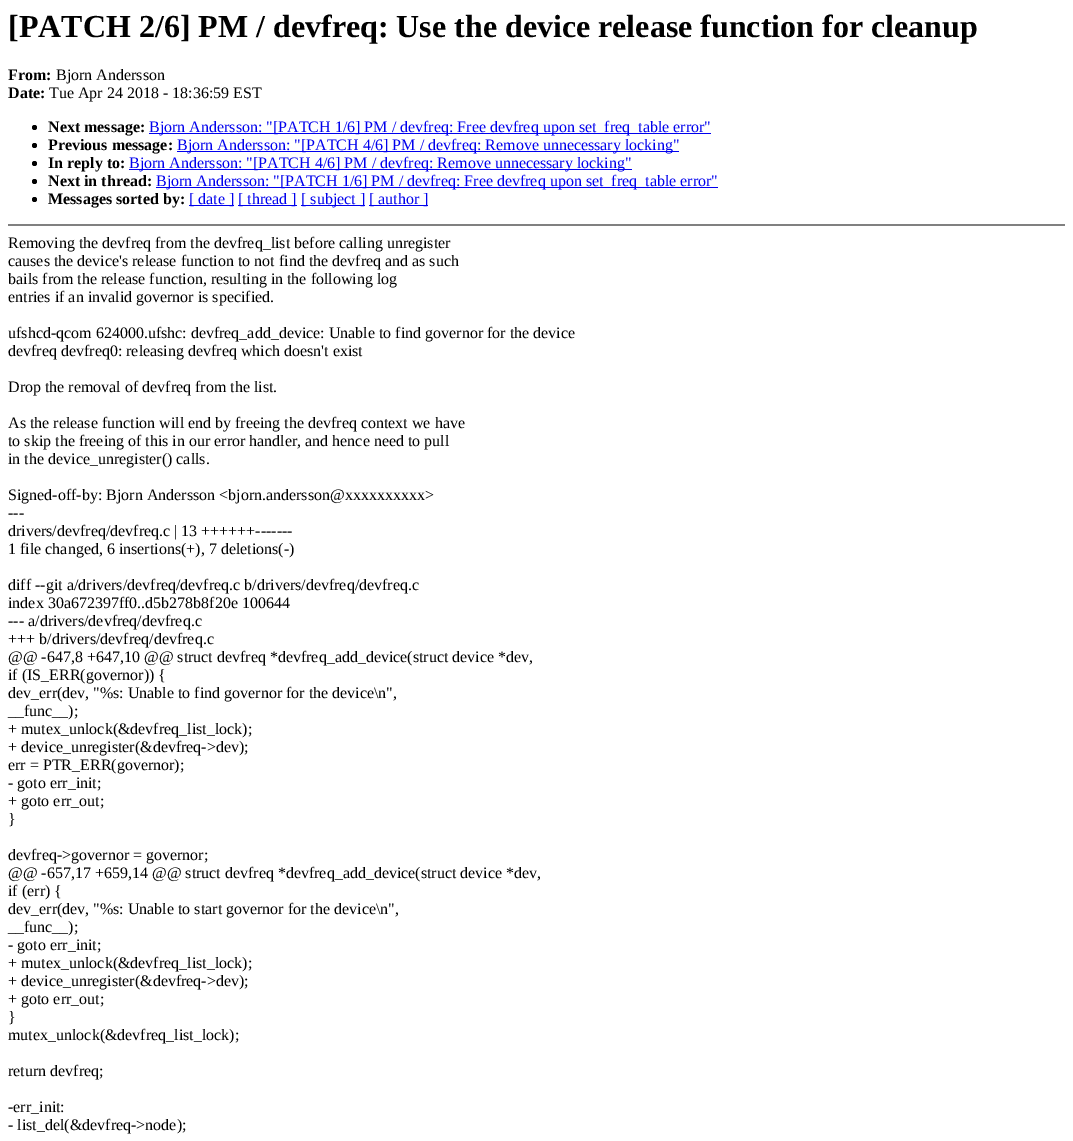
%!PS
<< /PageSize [1073 1141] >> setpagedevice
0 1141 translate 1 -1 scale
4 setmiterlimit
1 setgray
0 0 1073 1141 rectfill
/LiberationSerif-Bold [32 0 0 -32 0 0] selectfont
0 setgray
8 37 moveto ([PATCH 2/6] PM / devfreq: Use the device release function for cleanup) show
/LiberationSerif-Bold [16 0 0 -16 0 0] selectfont
8 80 moveto (From:) show
/LiberationSerif-Regular [16 0 0 -16 0 0] selectfont
56 80 moveto (Bjorn Andersson) show
/LiberationSerif-Bold [16 0 0 -16 0 0] selectfont
8 98 moveto (Date:) show
/LiberationSerif-Regular [16 0 0 -16 0 0] selectfont
49 98 moveto (Tue Apr 24 2018 - 18:36:59 EST) show
newpath 34.5 127.5 2.5 0 360 arc closepath fill
/LiberationSerif-Bold [16 0 0 -16 0 0] selectfont
48 132 moveto (Next message:) show
0 0 0.933 setrgbcolor
149 133 562 1 rectfill
/LiberationSerif-Regular [16 0 0 -16 0 0] selectfont
149 132 moveto (Bjorn Andersson: "[PATCH 1/6] PM / devfreq: Free devfreq upon set_freq_table error") show
0 setgray
newpath 34.5 145.5 2.5 0 360 arc closepath fill
/LiberationSerif-Bold [16 0 0 -16 0 0] selectfont
48 150 moveto (Previous message:) show
0 0 0.933 setrgbcolor
177 151 502 1 rectfill
/LiberationSerif-Regular [16 0 0 -16 0 0] selectfont
177 150 moveto (Bjorn Andersson: "[PATCH 4/6] PM / devfreq: Remove unnecessary locking") show
0 setgray
newpath 34.5 163.5 2.5 0 360 arc closepath fill
/LiberationSerif-Bold [16 0 0 -16 0 0] selectfont
48 168 moveto (In reply to:) show
0 0 0.933 setrgbcolor
129 169 503 1 rectfill
/LiberationSerif-Regular [16 0 0 -16 0 0] selectfont
129 168 moveto (Bjorn Andersson: "[PATCH 4/6] PM / devfreq: Remove unnecessary locking") show
0 setgray
newpath 34.5 181.5 2.5 0 360 arc closepath fill
/LiberationSerif-Bold [16 0 0 -16 0 0] selectfont
48 186 moveto (Next in thread:) show
0 0 0.933 setrgbcolor
156 187 562 1 rectfill
/LiberationSerif-Regular [16 0 0 -16 0 0] selectfont
156 186 moveto (Bjorn Andersson: "[PATCH 1/6] PM / devfreq: Free devfreq upon set_freq_table error") show
0 setgray
newpath 34.5 199.5 2.5 0 360 arc closepath fill
/LiberationSerif-Bold [16 0 0 -16 0 0] selectfont
48 204 moveto (Messages sorted by:) show
0 0 0.933 setrgbcolor
189 205 45 1 rectfill
/LiberationSerif-Regular [16 0 0 -16 0 0] selectfont
189 204 moveto ([ date ]) show
238 205 59 1 rectfill
238 204 moveto ([ thread ]) show
301 205 64 1 rectfill
301 204 moveto ([ subject ]) show
369 205 59 1 rectfill
369 204 moveto ([ author ]) show
0.502 setgray
8 224 1057 2 rectfill
0 setgray
8 248 moveto (Removing the devfreq from the devfreq_list before calling unregister) show
8 266 moveto (causes the device's release function to not find the devfreq and as such) show
8 284 moveto (bails from the release function, resulting in the following log) show
8 302 moveto (entries if an invalid governor is specified.) show
8 338 moveto (ufshcd-qcom 624000.ufshc: devfreq_add_device: Unable to find governor for the device) show
8 356 moveto (devfreq devfreq0: releasing devfreq which doesn't exist) show
8 392 moveto (Drop the removal of devfreq from the list.) show
8 428 moveto (As the release function will end by freeing the devfreq context we have) show
8 446 moveto (to skip the freeing of this in our error handler, and hence need to pull) show
8 464 moveto (in the device_unregister\(\) calls.) show
8 500 moveto (Signed-off-by: Bjorn Andersson <bjorn.andersson@xxxxxxxxxx>) show
8 518 moveto (---) show
8 536 moveto (drivers/devfreq/devfreq.c | 13 ++++++-------) show
8 554 moveto (1 file changed, 6 insertions\(+\), 7 deletions\(-\)) show
8 590 moveto (diff --git a/drivers/devfreq/devfreq.c b/drivers/devfreq/devfreq.c) show
8 608 moveto (index 30a672397ff0..d5b278b8f20e 100644) show
8 626 moveto (--- a/drivers/devfreq/devfreq.c) show
8 644 moveto (+++ b/drivers/devfreq/devfreq.c) show
8 662 moveto (@@ -647,8 +647,10 @@ struct devfreq *devfreq_add_device\(struct device *dev,) show
8 680 moveto (if \(IS_ERR\(governor\)\) {) show
8 698 moveto (dev_err\(dev, "%s: Unable to find governor for the device\\n",) show
8 716 moveto (__func__\);) show
8 734 moveto (+ mutex_unlock\(&devfreq_list_lock\);) show
8 752 moveto (+ device_unregister\(&devfreq->dev\);) show
8 770 moveto (err = PTR_ERR\(governor\);) show
8 788 moveto (- goto err_init;) show
8 806 moveto (+ goto err_out;) show
8 824 moveto (}) show
8 860 moveto (devfreq->governor = governor;) show
8 878 moveto (@@ -657,17 +659,14 @@ struct devfreq *devfreq_add_device\(struct device *dev,) show
8 896 moveto (if \(err\) {) show
8 914 moveto (dev_err\(dev, "%s: Unable to start governor for the device\\n",) show
8 932 moveto (__func__\);) show
8 950 moveto (- goto err_init;) show
8 968 moveto (+ mutex_unlock\(&devfreq_list_lock\);) show
8 986 moveto (+ device_unregister\(&devfreq->dev\);) show
8 1004 moveto (+ goto err_out;) show
8 1022 moveto (}) show
8 1040 moveto (mutex_unlock\(&devfreq_list_lock\);) show
8 1076 moveto (return devfreq;) show
8 1112 moveto (-err_init:) show
8 1130 moveto (- list_del\(&devfreq->node\);) show
showpage
